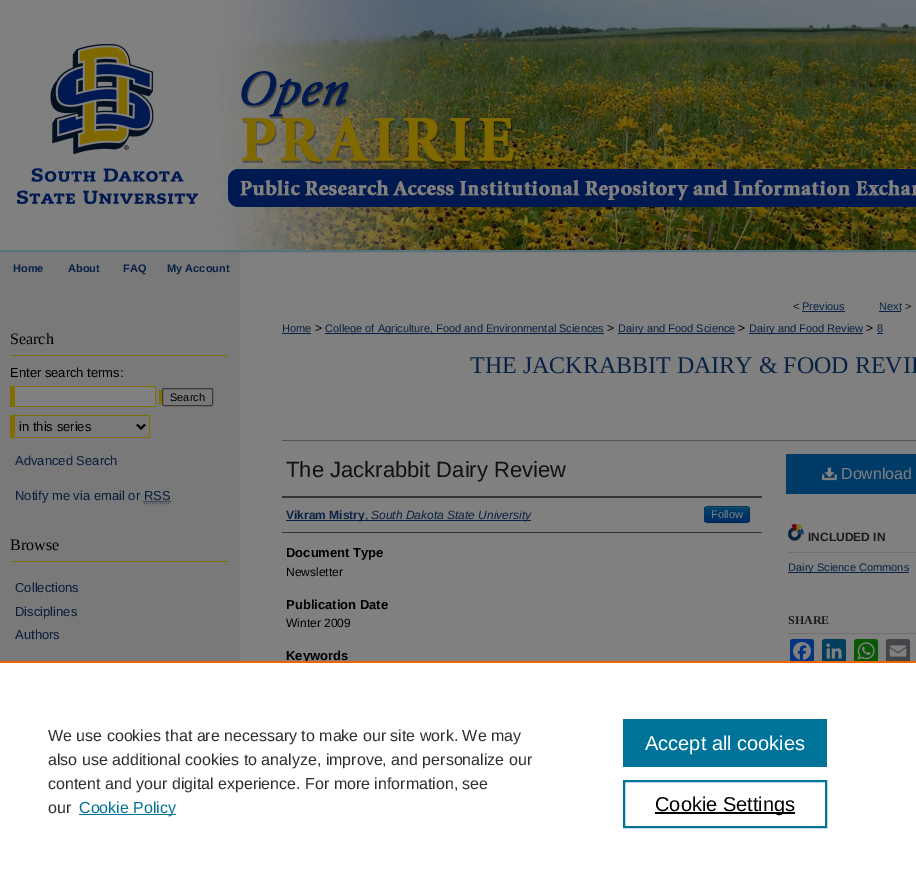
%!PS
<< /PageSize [916 881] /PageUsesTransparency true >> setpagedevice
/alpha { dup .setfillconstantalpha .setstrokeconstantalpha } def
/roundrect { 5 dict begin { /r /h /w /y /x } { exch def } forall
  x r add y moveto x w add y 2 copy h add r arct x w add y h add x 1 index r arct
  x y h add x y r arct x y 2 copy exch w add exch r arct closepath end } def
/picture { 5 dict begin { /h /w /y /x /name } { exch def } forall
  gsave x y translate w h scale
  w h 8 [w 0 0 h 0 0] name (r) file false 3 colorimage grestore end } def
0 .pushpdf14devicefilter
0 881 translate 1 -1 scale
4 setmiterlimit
0.502 setgray
0 0 916 881 rectfill
(img1.rgb) 0 44 225 209 picture
(img2.rgb) 225 0 691 253 picture
0.475 setgray
0 253 240 30 rectfill
/LiberationSans-Bold [11 0 0 -11 0 0] selectfont
0.031 0.129 0.267 setrgbcolor
13 272 moveto (Home) show
68 272 moveto (About) show
123 272 moveto (FAQ) show
167 272 moveto (My Account) show
0.475 setgray
0 283 240 378 rectfill
0.502 0.435 0 setrgbcolor
10 355 218 1 rectfill
/LiberationSerif-Regular [16 0 0 -16 0 0] selectfont
0 setgray
10 344 moveto (Search) show
/LiberationSans-Regular [13 0 0 -13 0 0] selectfont
10 377 moveto (Enter search terms:) show
0.502 0.435 0 setrgbcolor
10 386 146 21 rectfill
159 390 3 14 rectfill
0.502 setgray
15 387 140 19 rectfill
0.231 setgray
162.5 388.5 50 17 1.5 roundrect stroke
/LiberationSans-Regular [11 0 0 -11 0 0] selectfont
0 setgray
170 401 moveto (Search) show
0.502 0.435 0 setrgbcolor
10 415 140 1 rectfill
149 415 1 23 rectfill
10 437 140 1 rectfill
10 415 5 23 rectfill
0 setgray
2 setlinewidth
newpath 137 424.5 moveto 141 428.5 lineto 145 424.5 lineto stroke
/LiberationSans-Regular [13 0 0 -13 0 0] selectfont
19 431 moveto (in this series) show
0.027 0.114 0.231 setrgbcolor
15 465 moveto (Advanced Search) show
15 500 moveto (Notify me via email or RSS) show
1 setlinewidth
[1 1] 0 setdash
newpath 143.5 501.5 moveto 170.5 501.5 lineto stroke
0.302 setgray
newpath 144 503.5 moveto 170 503.5 lineto stroke
0.502 0.435 0 setrgbcolor
10 561 218 1 rectfill
/LiberationSerif-Regular [16 0 0 -16 0 0] selectfont
0 setgray
10 550 moveto (Browse) show
/LiberationSans-Regular [13 0 0 -13 0 0] selectfont
0.027 0.114 0.231 setrgbcolor
15 592 moveto (Collections) show
15 616 moveto (Disciplines) show
15 639 moveto (Authors) show
/LiberationSans-Regular [11 0 0 -11 0 0] selectfont
0.067 setgray
793 310 moveto (<) show
0.031 0.129 0.267 setrgbcolor
802 310 moveto (Previous) show
802 311 43 1 rectfill
879 310 moveto (Next) show
879 311 22 1 rectfill
0.067 setgray
905 310 moveto (>) show
0.031 0.129 0.267 setrgbcolor
282 332 moveto (Home) show
282 333 29 1 rectfill
/LiberationSans-Regular [12 0 0 -12 0 0] selectfont
0 setgray
315 332 moveto (>) show
0.031 0.129 0.267 setrgbcolor
325 333 279 1 rectfill
/LiberationSans-Regular [11 0 0 -11 0 0] selectfont
325 332 moveto (College of Agriculture, Food and Environmental Sciences) show
/LiberationSans-Regular [12 0 0 -12 0 0] selectfont
0 setgray
607 332 moveto (>) show
0.031 0.129 0.267 setrgbcolor
618 333 117 1 rectfill
/LiberationSans-Regular [11 0 0 -11 0 0] selectfont
618 332 moveto (Dairy and Food Science) show
/LiberationSans-Regular [12 0 0 -12 0 0] selectfont
0 setgray
738 332 moveto (>) show
0.031 0.129 0.267 setrgbcolor
749 333 114 1 rectfill
/LiberationSans-Regular [11 0 0 -11 0 0] selectfont
749 332 moveto (Dairy and Food Review) show
/LiberationSans-Regular [12 0 0 -12 0 0] selectfont
0 setgray
866 332 moveto (>) show
/LiberationSans-Regular [11 0 0 -11 0 0] selectfont
0.031 0.129 0.267 setrgbcolor
877 332 moveto (8) show
877 333 6 1 rectfill
/LiberationSerif-Regular [24 0 0 -24 0 0] selectfont
470 373 moveto (THE JACKRABBIT DAIRY & FOOD REVIE) show
0.333 setgray
282 440 634 1 rectfill
/LiberationSans-Regular [22 0 0 -22 0 0] selectfont
0.067 setgray
286 477 moveto (The Jackrabbit Dairy Review) show
0.2 setgray
282 496 480 2 rectfill
282 532 480 1 rectfill
0.031 0.129 0.267 setrgbcolor
286 520 245 1 rectfill
/LiberationSans-Bold [12 0 0 -12 0 0] selectfont
286 519 moveto (Vikram Mistry) show
/LiberationSans-Regular [12 0 0 -12 0 0] selectfont
365 519 moveto (,) show
/LiberationSans-Italic [12 0 0 -12 0 0] selectfont
371 519 moveto (South Dakota State University) show
0 0.227 0.4 setrgbcolor
704 506 46 17 4 roundrect fill
gsave
704 506 46 17 4 roundrect clip newpath
gsave newpath 704 507 moveto 750 507 lineto 750 522 lineto 704 522 lineto closepath clip newpath
<< /ShadingType 2 /ColorSpace /DeviceRGB /Coords [727 507 727 522] /Extend [true true] /Function << /FunctionType 2 /Domain [0 1] /C0 [0 0.267 0.4] /C1 [0 0.169 0.4] /N 1 >> >> shfill grestore
grestore
0.2 alpha
0.502 setgray
newpath 708 508 moveto 741 508 lineto 748 508 749 508 749 514 curveto 749 520 lineto 749 513 lineto 749 506 747 507 740 507 curveto 714 507 lineto 707 507 705 506 705 513 curveto 705 521 lineto 705 518 703 508 708 508 curveto closepath fill
0.25 alpha
0 setgray
[] 0 setdash
newpath 748.5 521.5 moveto 748 522 747 522.5 746 522.5 curveto 708 522.5 lineto 707 522.5 706 522 705.5 521.5 curveto stroke
0.1 alpha
newpath 705.5 521.5 moveto 704 519.5 704.5 516.5 704.5 514.5 curveto 704.5 505.5 705 506.5 714.5 506.5 curveto 739.5 506.5 lineto 749 506.5 749.5 505.5 749.5 514.5 curveto 749.5 516.5 750 519.5 748.5 521.5 curveto stroke
/LiberationSans-Regular [11 0 0 -11 0 0] selectfont
1 alpha
0.502 setgray
711 518 moveto (Follow) show
/LiberationSans-Bold [13 0 0 -13 0 0] selectfont
0 setgray
286 557 moveto (Document Type) show
/LiberationSans-Regular [12 0 0 -12 0 0] selectfont
286 576 moveto (Newsletter) show
/LiberationSans-Bold [13 0 0 -13 0 0] selectfont
286 609 moveto (Publication Date) show
/LiberationSans-Regular [12 0 0 -12 0 0] selectfont
286 627 moveto (Winter 2009) show
/LiberationSans-Bold [13 0 0 -13 0 0] selectfont
286 660 moveto (Keywords) show
0 0.227 0.4 setrgbcolor
786 454 130 40 rectfill
(img3.rgb) 822 467 15 14 picture
/LiberationSans-Regular [16 0 0 -16 0 0] selectfont
0.502 setgray
841 479 moveto (Download) show
(img4.rgb) 788 524 16 17 picture
0.435 setgray
788 552 128 1 rectfill
/LiberationSans-Bold [12 0 0 -12 0 0] selectfont
0.102 setgray
808 541 moveto (INCLUDED IN) show
0.031 0.129 0.267 setrgbcolor
788 572 121 1 rectfill
/LiberationSans-Regular [11 0 0 -11 0 0] selectfont
788 571 moveto (Dairy Science Commons) show
0.435 setgray
788 633 128 1 rectfill
/LiberationSerif-Bold [12 0 0 -12 0 0] selectfont
0.102 setgray
788 624 moveto (SHARE) show
0.016 0.2 0.502 setrgbcolor
790 639 24 24 3 roundrect fill
(img5.rgb) 793 642 18 18 picture
0 0.243 0.357 setrgbcolor
822 639 24 24 3 roundrect fill
(img6.rgb) 826 643 16 16 picture
0.035 0.345 0.02 setrgbcolor
854 639 24 24 3 roundrect fill
(img7.rgb) 857 642 18 18 picture
0.267 0.271 0.282 setrgbcolor
886 639 24 24 3 roundrect fill
(img8.rgb) 889 645 18 12 picture
1 setgray
0 663 916 218 rectfill
0.922 0.396 0 setrgbcolor
0 661 916 2 rectfill
/LiberationSans-Regular [16 0 0 -16 0 0] selectfont
0.18 setgray
48 741 moveto (We use cookies that are necessary to make our site work. We may) show
48 765 moveto (also use additional cookies to analyze, improve, and personalize our) show
48 789 moveto (content and your digital experience. For more information, see) show
48 813 moveto (our) show
0 0.451 0.596 setrgbcolor
79 814 97 1 rectfill
79 813 moveto (Cookie Policy) show
623 719 204 48 rectfill
/LiberationSans-Regular [20 0 0 -20 0 0] selectfont
1 setgray
645 750 moveto (Accept all cookies) show
0 0.451 0.596 setrgbcolor
2 setlinewidth
624 781 202 46 rectstroke
0 setgray
655 812 140 2 rectfill
655 811 moveto (Cookie Settings) show
.poppdf14devicefilter showpage
